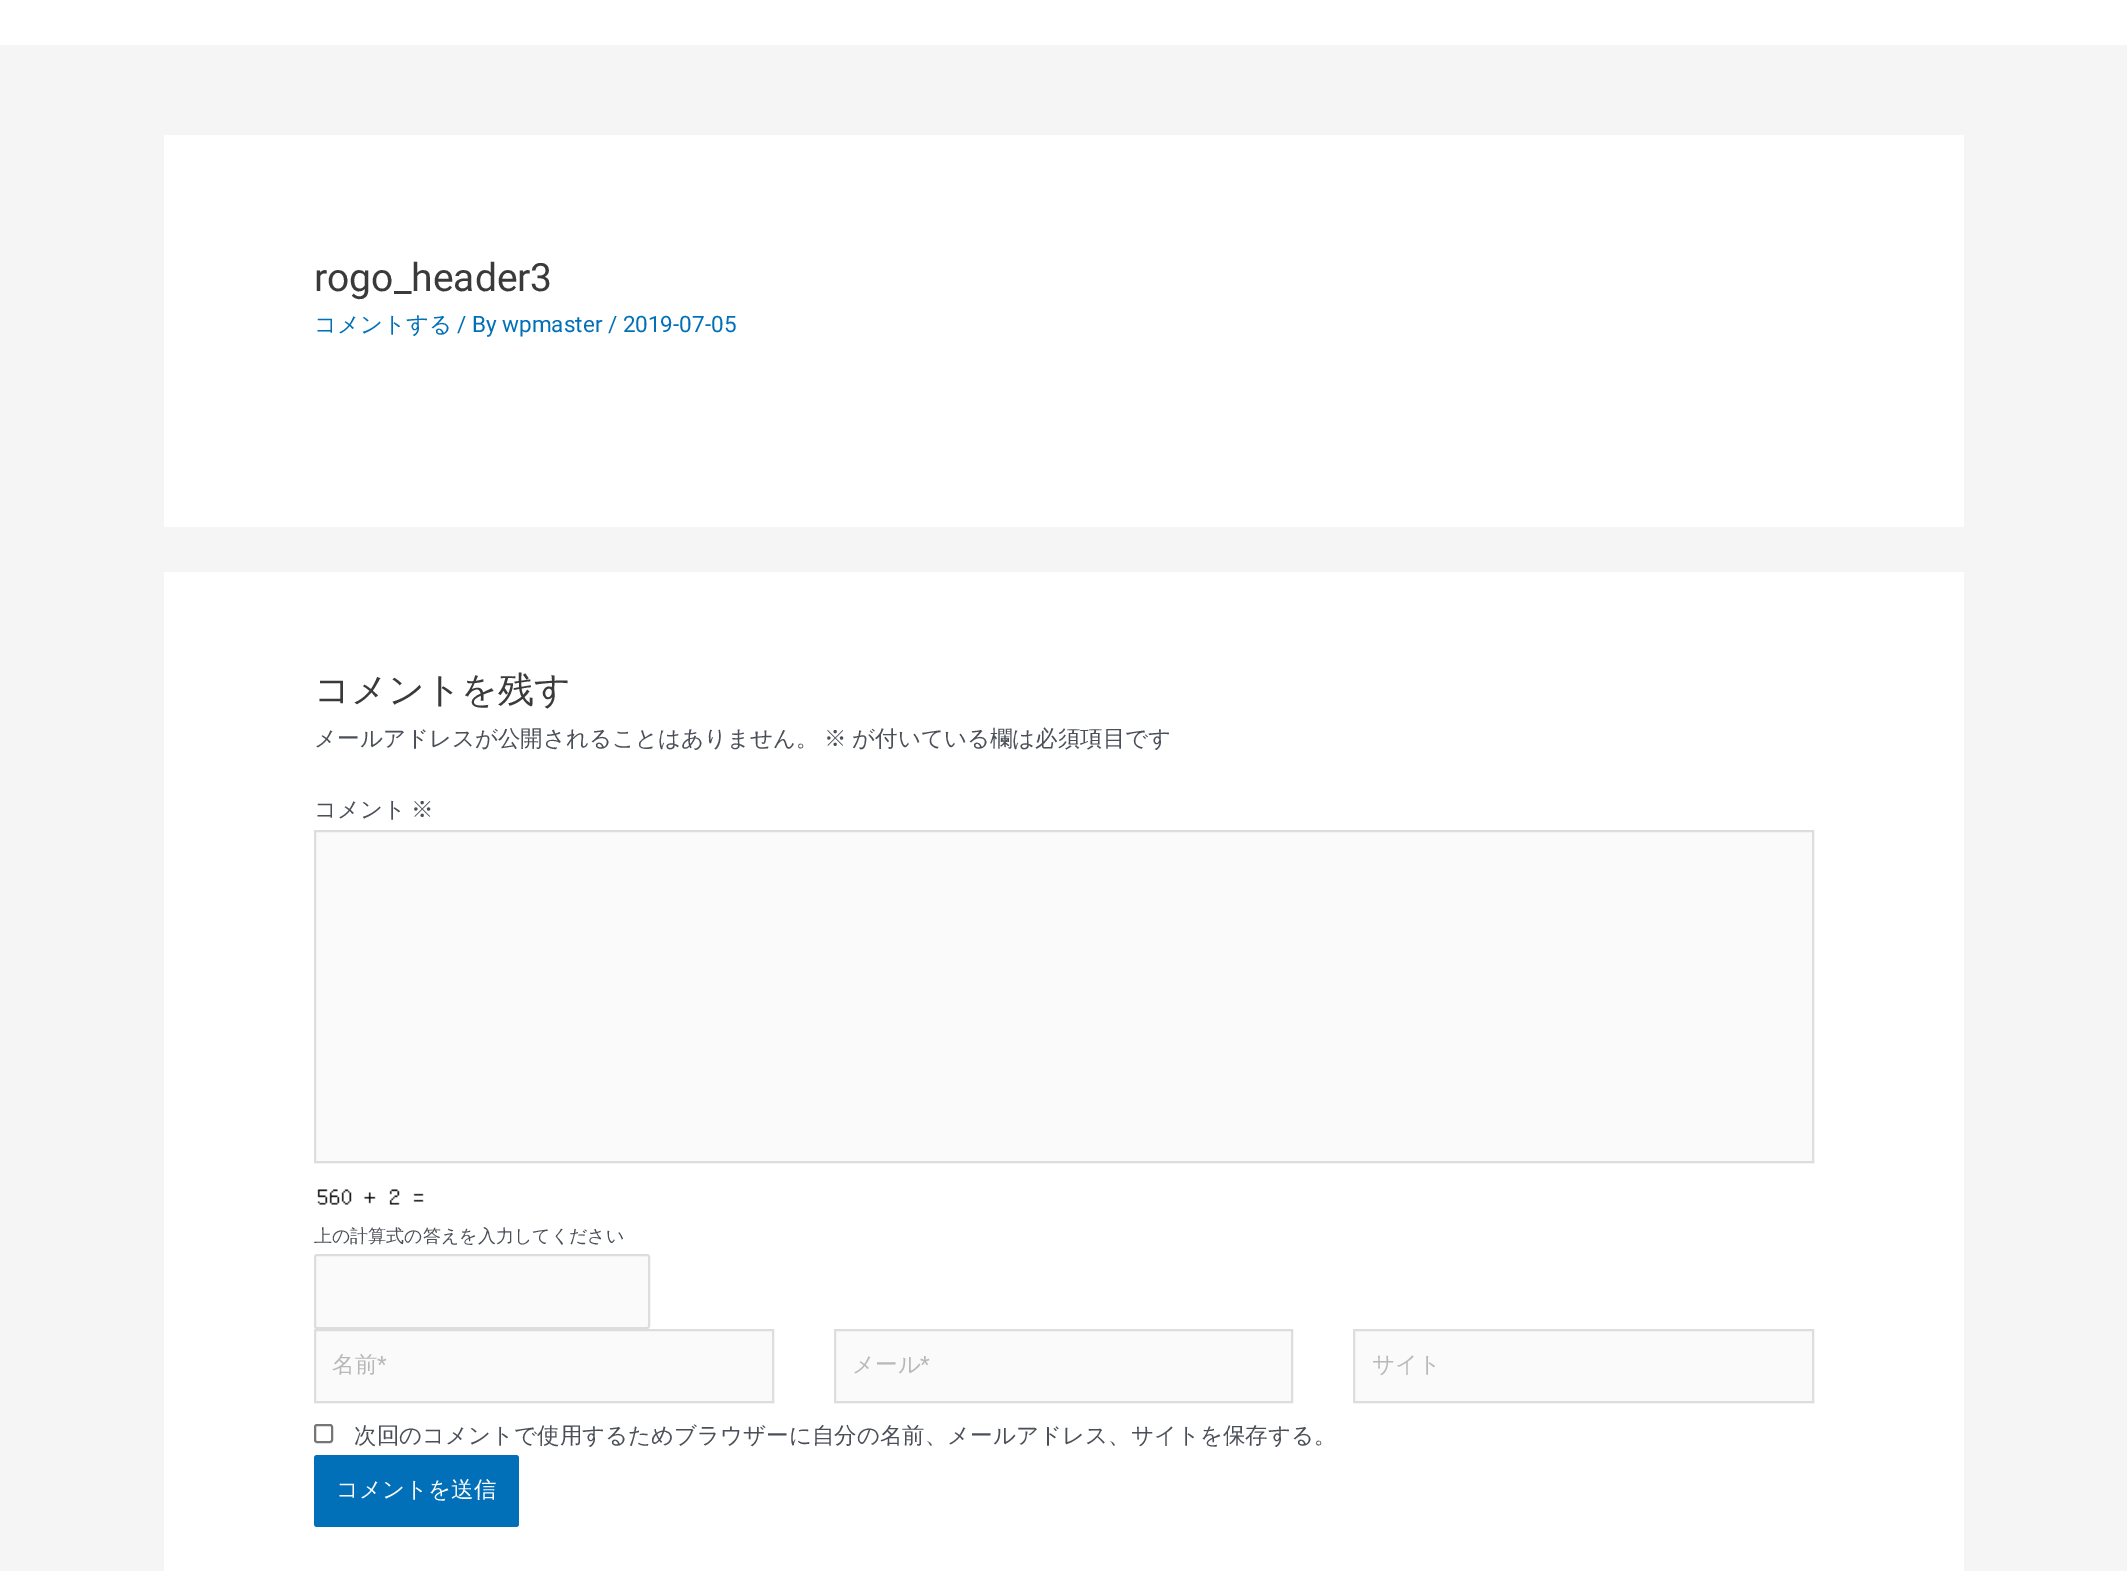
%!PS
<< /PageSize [2127 1571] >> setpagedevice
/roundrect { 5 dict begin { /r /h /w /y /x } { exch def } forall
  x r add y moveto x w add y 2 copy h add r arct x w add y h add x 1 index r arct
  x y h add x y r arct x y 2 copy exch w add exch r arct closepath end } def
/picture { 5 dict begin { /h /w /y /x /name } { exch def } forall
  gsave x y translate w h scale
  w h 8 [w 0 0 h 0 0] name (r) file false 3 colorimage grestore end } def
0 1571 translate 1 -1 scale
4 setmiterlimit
0.961 setgray
0 0 2127 1571 rectfill
1 setgray
0 0 2127 45 rectfill
164 135 1800 392 rectfill
/Roboto-Regular [39 0 0 -39 0 0] selectfont
0.227 setgray
314 291 moveto (rogo_header3) show
/WenQuanYiZenHei-Medium [22.5 0 0 -22.5 0 0] selectfont
0.004 0.439 0.725 setrgbcolor
314 332 moveto (コメントする) show
/Roboto-Regular [22.5 0 0 -22.5 0 0] selectfont
457 332 moveto (/ By wpmaster / 2019-07-05) show
1 setgray
164 572 1800 999 rectfill
/WenQuanYiZenHei-Medium [36 0 0 -36 0 0] selectfont
0.227 setgray
314 702 moveto (コメントを残す) show
/WenQuanYiZenHei-Medium [22.5 0 0 -22.5 0 0] selectfont
0.294 0.31 0.345 setrgbcolor
314 746 moveto (メールアドレスが公開されることはありません。) show
824 746 moveto (※) show
852 746 moveto (が付いている欄は必須項目です) show
314 817 moveto (コメント) show
411 817 moveto (※) show
0.98 setgray
newpath 315 831 moveto 1813 831 lineto 1813 1162 lineto 315 1162 lineto closepath gsave fill grestore
0.867 setgray
2 setlinewidth
stroke
(img1.rgb) 317 1189 107 16 picture
/WenQuanYiZenHei-Medium [18 0 0 -18 0 0] selectfont
0.294 0.31 0.345 setrgbcolor
314 1242 moveto (上の計算式の答えを入力してください) show
0.98 setgray
315 1255 334 73 2 roundrect gsave fill grestore
0.867 setgray
stroke
0.98 setgray
newpath 315 1330 moveto 773 1330 lineto 773 1402 lineto 315 1402 lineto closepath gsave fill grestore
0.867 setgray
stroke
/WenQuanYiZenHei-Medium [22.5 0 0 -22.5 0 0] selectfont
0.722 setgray
332 1372 moveto (名前) show
/Roboto-Regular [22.5 0 0 -22.5 0 0] selectfont
377 1372 moveto (*) show
0.98 setgray
newpath 835 1330 moveto 1292 1330 lineto 1292 1402 lineto 835 1402 lineto closepath gsave fill grestore
0.867 setgray
stroke
/WenQuanYiZenHei-Medium [22.5 0 0 -22.5 0 0] selectfont
0.722 setgray
852 1372 moveto (メール) show
/Roboto-Regular [22.5 0 0 -22.5 0 0] selectfont
920 1372 moveto (*) show
0.98 setgray
newpath 1354 1330 moveto 1813 1330 lineto 1813 1402 lineto 1354 1402 lineto closepath gsave fill grestore
0.867 setgray
stroke
/WenQuanYiZenHei-Medium [22.5 0 0 -22.5 0 0] selectfont
0.722 setgray
1372 1372 moveto (サイト) show
0.463 setgray
315 1425 17 17 2 roundrect stroke
0.294 0.31 0.345 setrgbcolor
354 1443 moveto (次回のコメントで使用するためブラウザーに自分の名前、メールアドレス、サイトを保存する。) show
0.004 0.439 0.725 setrgbcolor
314 1455 205 72 3 roundrect fill
1 setgray
336 1497 moveto (コメントを送信) show
showpage
